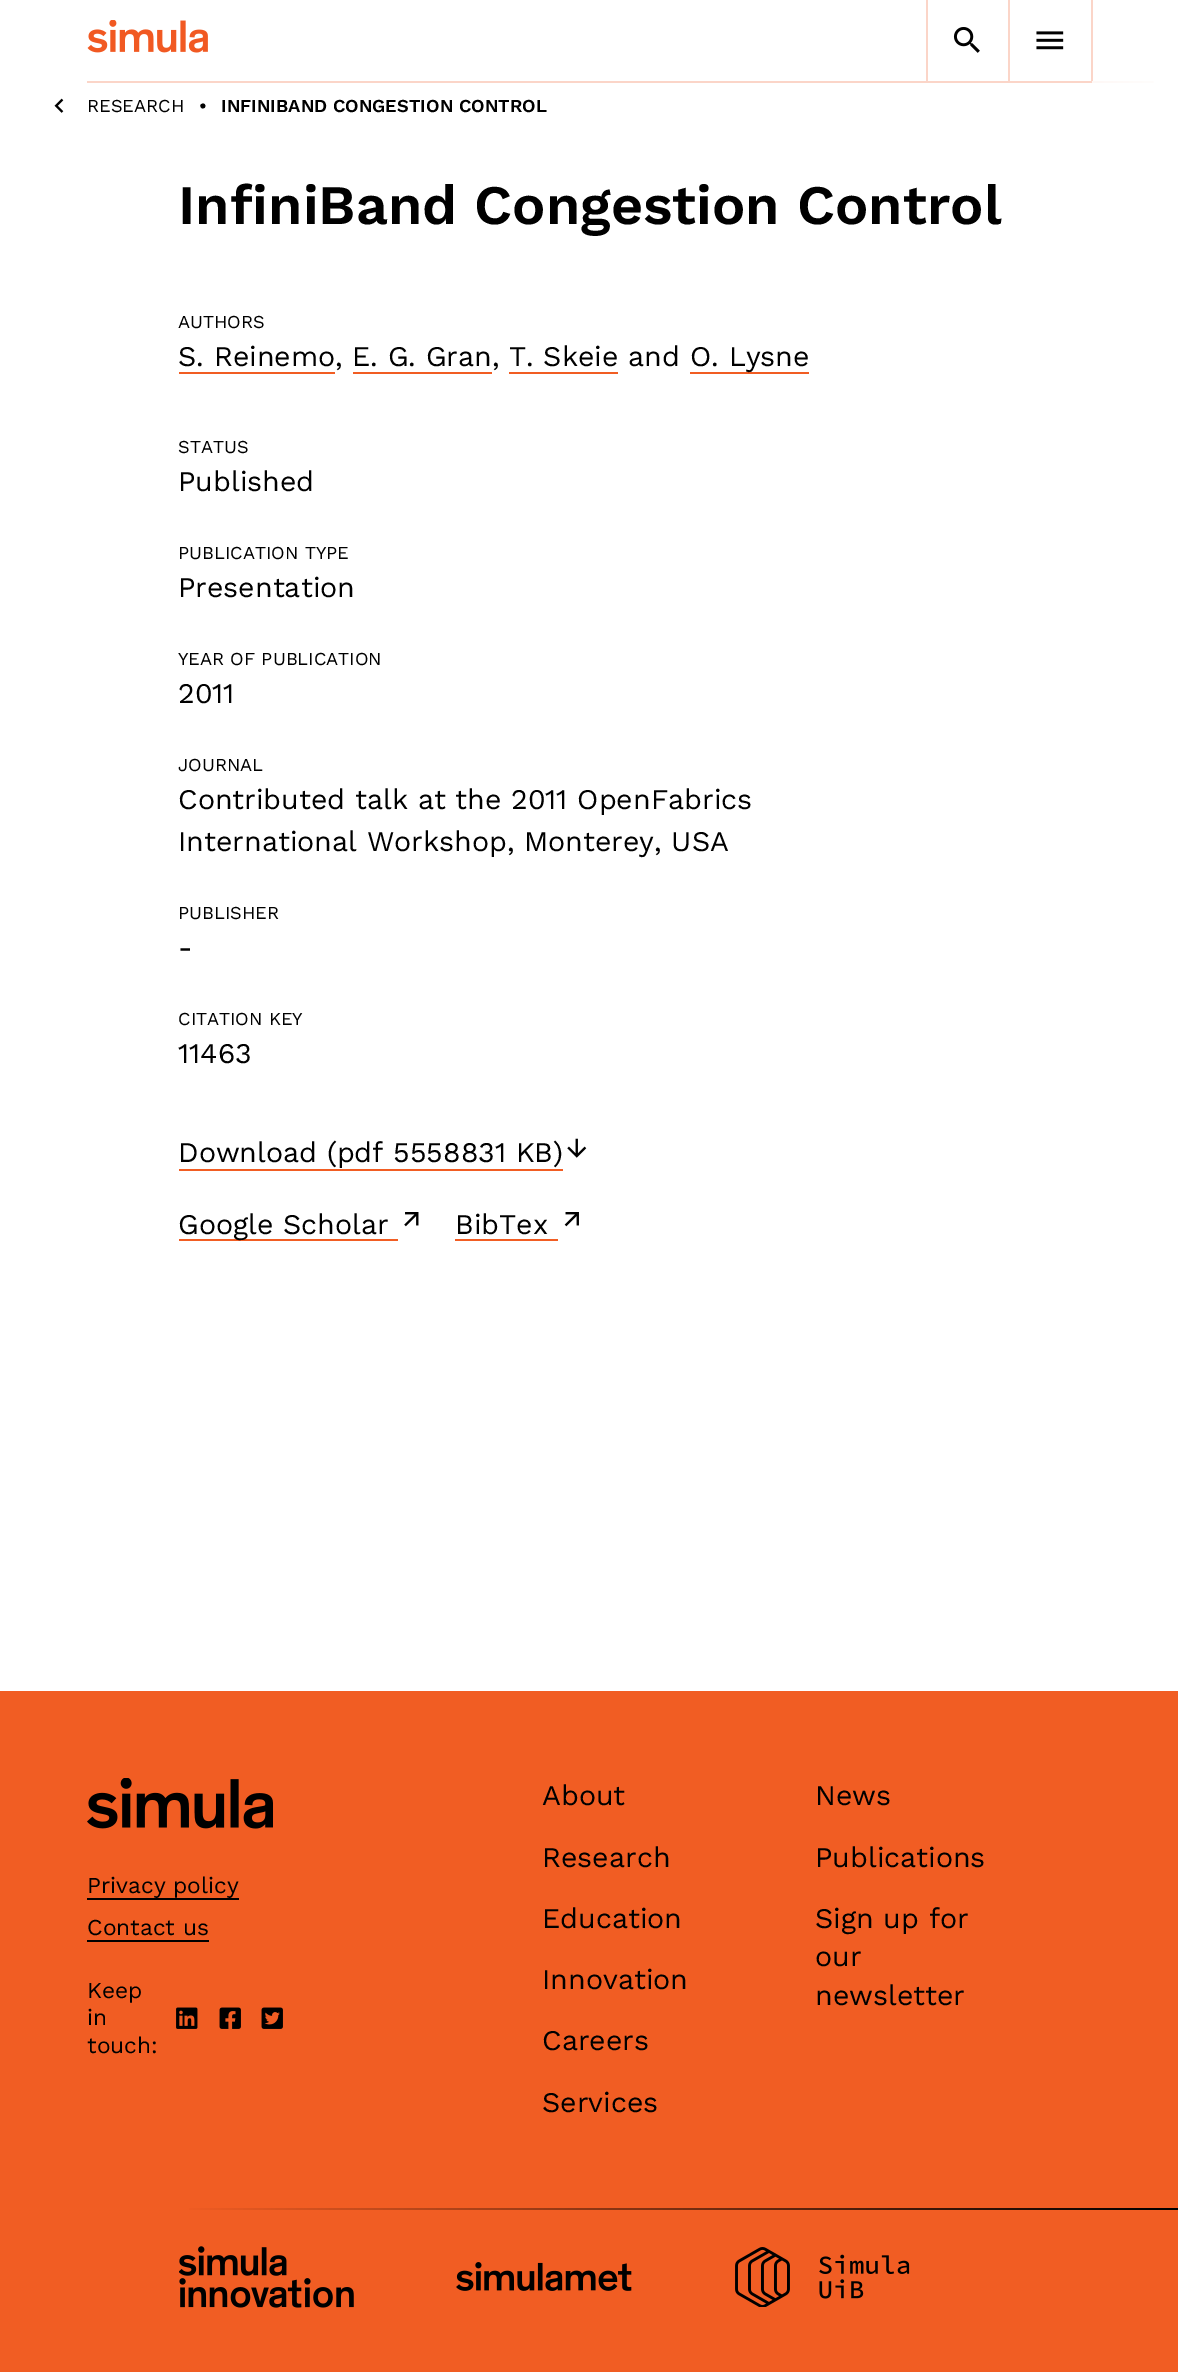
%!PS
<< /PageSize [1178 2372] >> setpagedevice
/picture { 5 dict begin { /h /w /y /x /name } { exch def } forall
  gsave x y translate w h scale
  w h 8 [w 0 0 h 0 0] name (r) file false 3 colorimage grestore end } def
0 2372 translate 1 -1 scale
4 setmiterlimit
1 setgray
0 0 1178 2372 rectfill
0.984 0.835 0.784 setrgbcolor
87 81 1005 2 rectfill
(img1.rgb) 87 20 121 33 picture
1008 0 2 81 rectfill
926 0 2 81 rectfill
(img2.rgb) 953 27 27 26 picture
1091 0 2 81 rectfill
(img3.rgb) 1036 31 28 19 picture
gsave newpath 1092 81 moveto 1154 81 lineto 1154 83 lineto 1092 83 lineto closepath clip newpath
<< /ShadingType 2 /ColorSpace /DeviceRGB /Coords [87 82 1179 82] /Extend [true true] /Function << /FunctionType 3 /Domain [0 1] /Functions [<< /FunctionType 2 /Domain [0 1] /C0 [1 1 1] /C1 [0.984 0.835 0.784] /N 1 >> << /FunctionType 2 /Domain [0 1] /C0 [0.984 0.835 0.784] /C1 [1 1 1] /N 1 >>] /Bounds [0.5] /Encode [0 1 0 1] >> >> shfill grestore
(img4.rgb) 54 98 10 15 picture
/WorkSans-Regular [18.25 0 0 -18.25 0 0] selectfont
0 setgray
87 112 moveto (RESEARCH) show
/WorkSans-SemiBold [18.25 0 0 -18.25 0 0] selectfont
199 112 moveto (•) show
221 112 moveto (INFINIBAND CONGESTION CONTROL) show
/WorkSans-SemiBold [55.7 0 0 -55.7 0 0] selectfont
178 224 moveto (InfiniBand Congestion Control) show
/WorkSans-Regular [18.25 0 0 -18.25 0 0] selectfont
178 328 moveto (AUTHORS) show
/WorkSans-Regular [28.5 0 0 -28.5 0 0] selectfont
178 366 moveto (S. Reinemo, E. G. Gran, T. Skeie and) show
0.945 0.365 0.137 setrgbcolor
179 372 156 2 rectfill
690 372 119 2 rectfill
0 setgray
690 366 moveto (O. Lysne) show
0.945 0.365 0.137 setrgbcolor
353 372 139 2 rectfill
509 372 109 2 rectfill
/WorkSans-Regular [18.25 0 0 -18.25 0 0] selectfont
0 setgray
178 453 moveto (STATUS) show
/WorkSans-Regular [28.5 0 0 -28.5 0 0] selectfont
178 491 moveto (Published) show
/WorkSans-Regular [18.25 0 0 -18.25 0 0] selectfont
178 559 moveto (PUBLICATION TYPE) show
/WorkSans-Regular [28.5 0 0 -28.5 0 0] selectfont
178 597 moveto (Presentation) show
/WorkSans-Regular [18.25 0 0 -18.25 0 0] selectfont
178 665 moveto (YEAR OF PUBLICATION) show
/WorkSans-Regular [28.5 0 0 -28.5 0 0] selectfont
178 703 moveto (2011) show
/WorkSans-Regular [18.25 0 0 -18.25 0 0] selectfont
178 771 moveto (JOURNAL) show
/WorkSans-Regular [28.5 0 0 -28.5 0 0] selectfont
178 809 moveto (Contributed talk at the 2011 OpenFabrics) show
178 851 moveto (International Workshop, Monterey, USA) show
/WorkSans-Regular [18.25 0 0 -18.25 0 0] selectfont
178 919 moveto (PUBLISHER) show
/WorkSans-Regular [28.5 0 0 -28.5 0 0] selectfont
178 957 moveto (-) show
/WorkSans-Regular [18.25 0 0 -18.25 0 0] selectfont
178 1025 moveto (CITATION KEY) show
/WorkSans-Regular [28.5 0 0 -28.5 0 0] selectfont
178 1063 moveto (11463) show
178 1162 moveto (Download \(pdf 5558831 KB\)) show
0.945 0.365 0.137 setrgbcolor
179 1169 384 2 rectfill
(img5.rgb) 567 1138 20 20 picture
179 1239 219 2 rectfill
0 setgray
178 1234 moveto (Google Scholar) show
(img6.rgb) 404 1212 15 15 picture
455 1234 moveto (BibTex) show
0.945 0.365 0.137 setrgbcolor
455 1239 103 2 rectfill
(img7.rgb) 564 1212 15 15 picture
0 1691 1178 681 rectfill
(img8.rgb) 87 1778 186 51 picture
/WorkSans-Regular [22.75 0 0 -22.75 0 0] selectfont
0 setgray
87 1893 moveto (Privacy policy) show
87 1898 152 2 rectfill
87 1935 moveto (Contact us) show
87 1940 122 2 rectfill
87 1998 moveto (Keep) show
87 2025 moveto (in) show
(img9.rgb) 176 2007 22 22 picture
(img10.rgb) 219 2007 22 22 picture
(img11.rgb) 261 2007 22 22 picture
87 2053 moveto (touch:) show
/WorkSans-Regular [28.5 0 0 -28.5 0 0] selectfont
542 1805 moveto (About) show
542 1867 moveto (Research) show
542 1928 moveto (Education) show
542 1989 moveto (Innovation) show
542 2050 moveto (Careers) show
542 2112 moveto (Services) show
815 1805 moveto (News) show
815 1867 moveto (Publications) show
815 1928 moveto (Sign up for) show
815 1966 moveto (our) show
815 2005 moveto (newsletter) show
gsave newpath 189 2208 moveto 1178 2208 lineto 1178 2210 lineto 189 2210 lineto closepath clip newpath
<< /ShadingType 2 /ColorSpace /DeviceRGB /Coords [179 2209 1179 2209] /Extend [true true] /Function << /FunctionType 2 /Domain [0 1] /C0 [0.945 0.365 0.137] /C1 [0 0 0] /N 1 >> >> shfill grestore
(img12.rgb) 179 2246 175 62 picture
(img13.rgb) 456 2262 176 29 picture
(img14.rgb) 735 2247 175 60 picture
showpage
